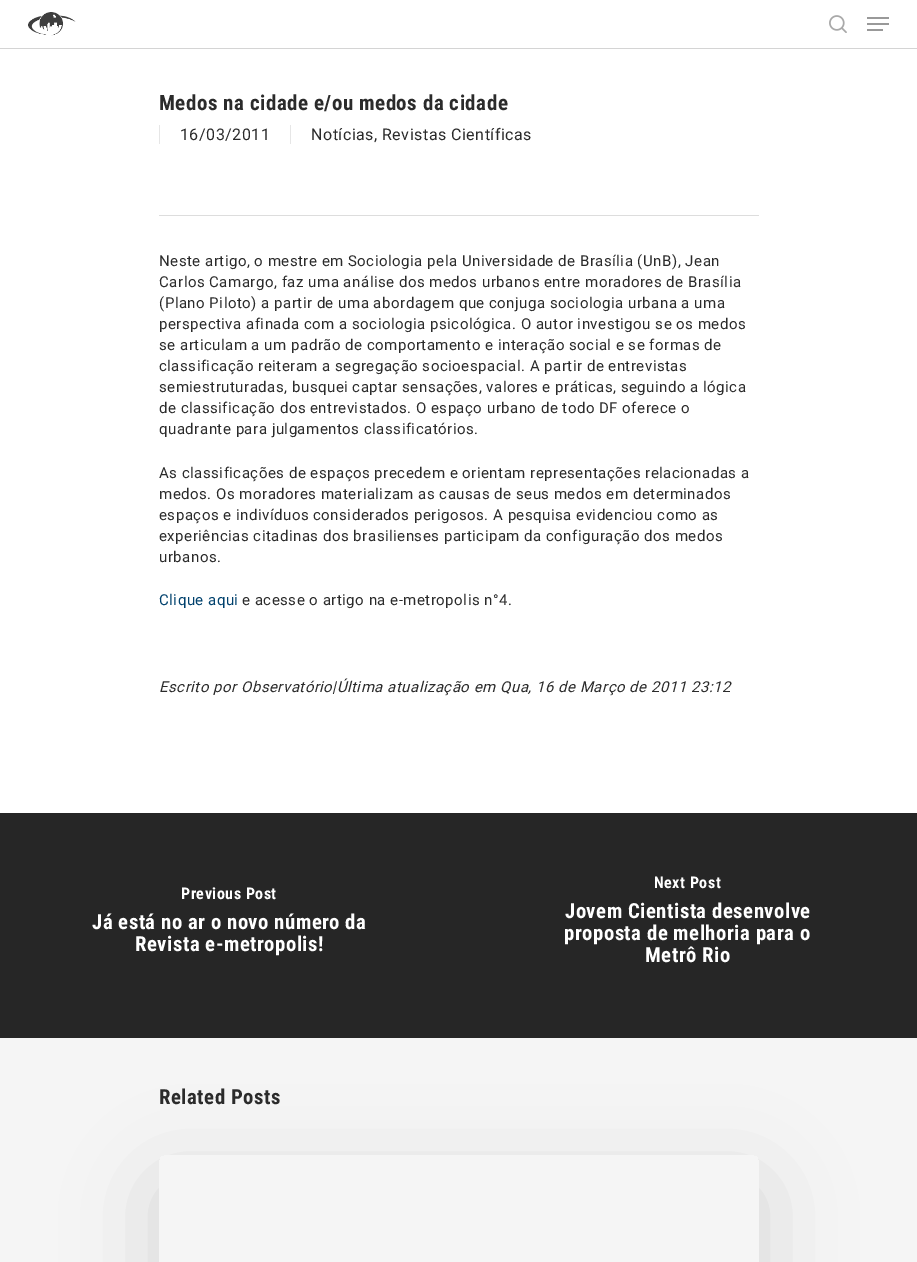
%!PS
<< /PageSize [917 1262] /PageUsesTransparency true >> setpagedevice
/alpha { dup .setfillconstantalpha .setstrokeconstantalpha } def
/roundrect { 5 dict begin { /r /h /w /y /x } { exch def } forall
  x r add y moveto x w add y 2 copy h add r arct x w add y h add x 1 index r arct
  x y h add x y r arct x y 2 copy exch w add exch r arct closepath end } def
/shadow { 12 dict begin { /a /b /q /h /w /y /x } { exch def } forall gsave /was 0 def
  9 -2 -9 { dup b mul 4 div /e exch def 1 sub .425 mul 2.718 exch exp 1 add a .99 .min exch div /now exch def
    1 1 now sub 1 was sub div sub alpha /was now def
    w h .min e 2 mul add 0 gt { x e sub y e sub w e 2 mul add h e 2 mul add
      q e add b .6 mul add w h .min 2 div e add .min 0 .max roundrect fill } if } for grestore end } def
/picture { 5 dict begin { /h /w /y /x /name } { exch def } forall
  gsave x y translate w h scale
  w h 8 [w 0 0 h 0 0] name (r) file false 3 colorimage grestore end } def
0 .pushpdf14devicefilter
0 1262 translate 1 -1 scale
4 setmiterlimit
1 setgray
0 0 917 1262 rectfill
0.961 setgray
0 1038 917 224 rectfill
0.831 setgray
0 48 917 1 rectfill
(img1.rgb) 28 12 48 24 picture
(img2.rgb) 829 15 18 18 picture
0.6 setgray
867 17 22 2 rectfill
867 29 16 2 rectfill
867 23 22 2 rectfill
0.867 setgray
159 215 600 1 rectfill
/RobotoCondensed-Bold [21 0 0 -21 0 0] selectfont
0.169 setgray
159 110 moveto 0.5 0 (Medos na cidade e/ou medos da cidade) ashow
/Roboto-Regular [16 0 0 -16 0 0] selectfont
180 140 moveto 0.5 0 (16/03/2011) ashow
0.902 setgray
159 125 1 19 rectfill
0.169 setgray
311 140 moveto 0.5 0 (Notícias, Revistas Científicas) ashow
0.902 setgray
290 125 1 19 rectfill
/Roboto-Regular [15 0 0 -15 0 0] selectfont
0.169 setgray
159 266 moveto 0.5 0 (Neste artigo, o mestre em Sociologia pela Universidade de Brasília \(UnB\), Jean) ashow
159 287 moveto 0.5 0 (Carlos Camargo, faz uma análise dos medos urbanos entre moradores de Brasília) ashow
159 308 moveto 0.5 0 (\(Plano Piloto\) a partir de uma abordagem que conjuga sociologia urbana a uma) ashow
159 329 moveto 0.5 0 (perspectiva afinada com a sociologia psicológica. O autor investigou se os medos) ashow
159 350 moveto 0.5 0 (se articulam a um padrão de comportamento e interação social e se formas de) ashow
159 371 moveto 0.5 0 (classificação reiteram a segregação socioespacial. A partir de entrevistas) ashow
159 392 moveto 0.5 0 (semiestruturadas, busquei captar sensações, valores e práticas, seguindo a lógica) ashow
159 413 moveto 0.5 0 (de classificação dos entrevistados. O espaço urbano de todo DF oferece o) ashow
159 434 moveto 0.5 0 (quadrante para julgamentos classificatórios.) ashow
159 478 moveto 0.5 0 (As classificações de espaços precedem e orientam representações relacionadas a) ashow
159 499 moveto 0.5 0 (medos. Os moradores materializam as causas de seus medos em determinados) ashow
159 520 moveto 0.5 0 (espaços e indivíduos considerados perigosos. A pesquisa evidenciou como as) ashow
159 541 moveto 0.5 0 (experiências citadinas dos brasilienses participam da configuração dos medos) ashow
159 562 moveto 0.5 0 (urbanos.) ashow
0 0.255 0.427 setrgbcolor
159 605 moveto 0.5 0 (Clique aqui) ashow
0.169 setgray
242 605 moveto 0.5 0 (e acesse o artigo na e-metropolis n°4.) ashow
/Roboto-Italic [15 0 0 -15 0 0] selectfont
159 692 moveto 0.5 0 (Escrito por Observatório|Última atualização em Qua, 16 de Março de 2011 23:12) ashow
0.149 setgray
0 813 917 225 rectfill
/RobotoCondensed-Bold [16 0 0 -16 0 0] selectfont
1 setgray
181 899 moveto 0.5 0 (Previous Post) ashow
/RobotoCondensed-Bold [20.75 0 0 -20.75 0 0] selectfont
92 929 moveto 0.5 0 (Já está no ar o novo número da) ashow
135 951 moveto 0.5 0 (Revista e-metropolis!) ashow
/RobotoCondensed-Bold [16 0 0 -16 0 0] selectfont
654 888 moveto 0.5 0 (Next Post) ashow
/RobotoCondensed-Bold [20.75 0 0 -20.75 0 0] selectfont
565 918 moveto 0.5 0 (Jovem Cientista desenvolve) ashow
564 940 moveto 0.5 0 (proposta de melhoria para o) ashow
645 962 moveto 0.5 0 (Metrô Rio) ashow
gsave
newpath 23 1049 moveto 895 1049 lineto 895 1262 lineto 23 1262 lineto closepath 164 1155 moveto 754 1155 lineto 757 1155 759 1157 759 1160 curveto 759 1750 lineto 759 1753 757 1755 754 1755 curveto 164 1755 lineto 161 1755 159 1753 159 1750 curveto 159 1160 lineto 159 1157 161 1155 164 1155 curveto closepath eoclip newpath
0 setgray
159 1185 600 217 5 45 0.14 shadow
grestore
0.169 setgray
159 1104 moveto 0.5 0 (Related Posts) ashow
.poppdf14devicefilter showpage
